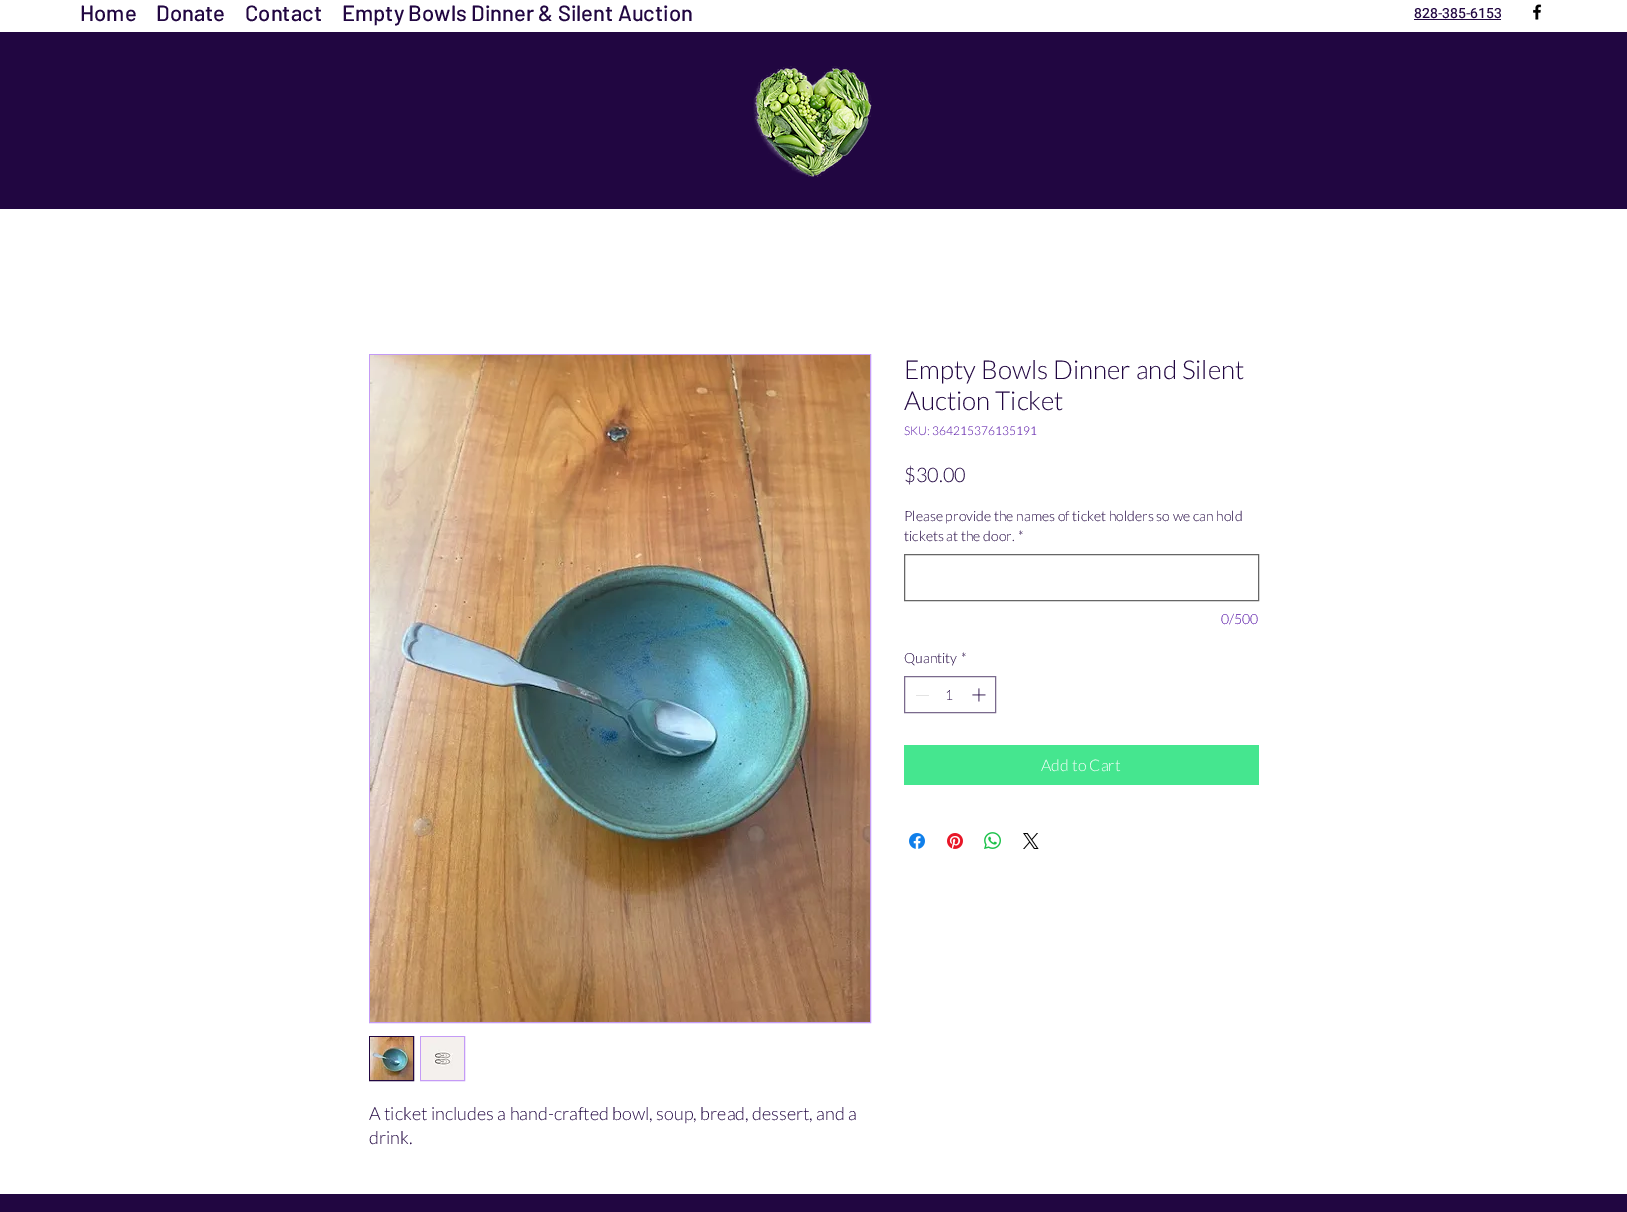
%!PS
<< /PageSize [1627 1212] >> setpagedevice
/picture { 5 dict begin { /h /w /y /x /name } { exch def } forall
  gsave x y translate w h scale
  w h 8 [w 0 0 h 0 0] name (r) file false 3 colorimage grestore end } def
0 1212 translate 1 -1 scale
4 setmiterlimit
1 setgray
0 0 1627 1212 rectfill
/Barlow-Medium [22 0 0 -22 0 0] selectfont
0.129 0.024 0.255 setrgbcolor
80 21 moveto (Home) show
156 21 moveto (Donate) show
245 21 moveto (Contact) show
342 21 moveto (Empty Bowls Dinner & Silent Auction) show
/Heebo-Medium [14 0 0 -14 0 0] selectfont
1414 18 moveto (828-385-6153) show
1414 19 87 1 rectfill
(img1.rgb) 1533 4 9 16 picture
0 32 1627 177 rectfill
(img2.rgb) 753 66 119 111 picture
/Lato-Light [26 0 0 -26 0 0] selectfont
904 379 moveto (Empty Bowls Dinner and Silent) show
904 410 moveto (Auction Ticket) show
/Lato-Light [12 0 0 -12 0 0] selectfont
0.329 0.059 0.647 setrgbcolor
904 435 moveto (SKU: 364215376135191) show
/Lato-Light [20 0 0 -20 0 0] selectfont
0.129 0.024 0.255 setrgbcolor
904 482 moveto ($30.00) show
/Lato-Light [14 0 0 -14 0 0] selectfont
904 521 moveto (Please provide the names of ticket holders so we can hold) show
904 541 moveto (tickets at the door.) show
1018 541 moveto (*) show
0.4 setgray
904.5 554.5 354 46 rectstroke
0.329 0.059 0.647 setrgbcolor
1221 624 moveto (0/500) show
0.129 0.024 0.255 setrgbcolor
904 663 moveto (Quantity) show
961 663 moveto (*) show
0.478 0.416 0.553 setrgbcolor
904.5 676.5 91 36 rectstroke
0.89 setgray
916 695 13 1 rectfill
0.129 0.024 0.255 setrgbcolor
945 700 moveto (1) show
(img3.rgb) 972 688 14 14 picture
0.271 0.902 0.561 setrgbcolor
904 745 355 40 rectfill
/Lato-Light [16 0 0 -16 0 0] selectfont
1 setgray
1041 771 moveto (Add to Cart) show
(img4.rgb) 909 833 16 16 picture
(img5.rgb) 947 833 16 16 picture
(img6.rgb) 984 832 17 17 picture
(img7.rgb) 1023 833 16 16 picture
0.769 0.608 0.965 setrgbcolor
369.5 354.5 501 668 rectstroke
(img8.rgb) 370 355 500 667 picture
0.129 0.024 0.255 setrgbcolor
369.5 1036.5 44 44 rectstroke
(img9.rgb) 370 1037 43 43 picture
0.769 0.608 0.965 setrgbcolor
420.5 1036.5 44 44 rectstroke
(img10.rgb) 421 1037 43 43 picture
/Lato-Light [18 0 0 -18 0 0] selectfont
0.129 0.024 0.255 setrgbcolor
369 1120 moveto (A ticket includes a hand-crafted bowl, soup, bread, dessert, and a) show
369 1144 moveto (drink.) show
0 1194 1627 18 rectfill
showpage
